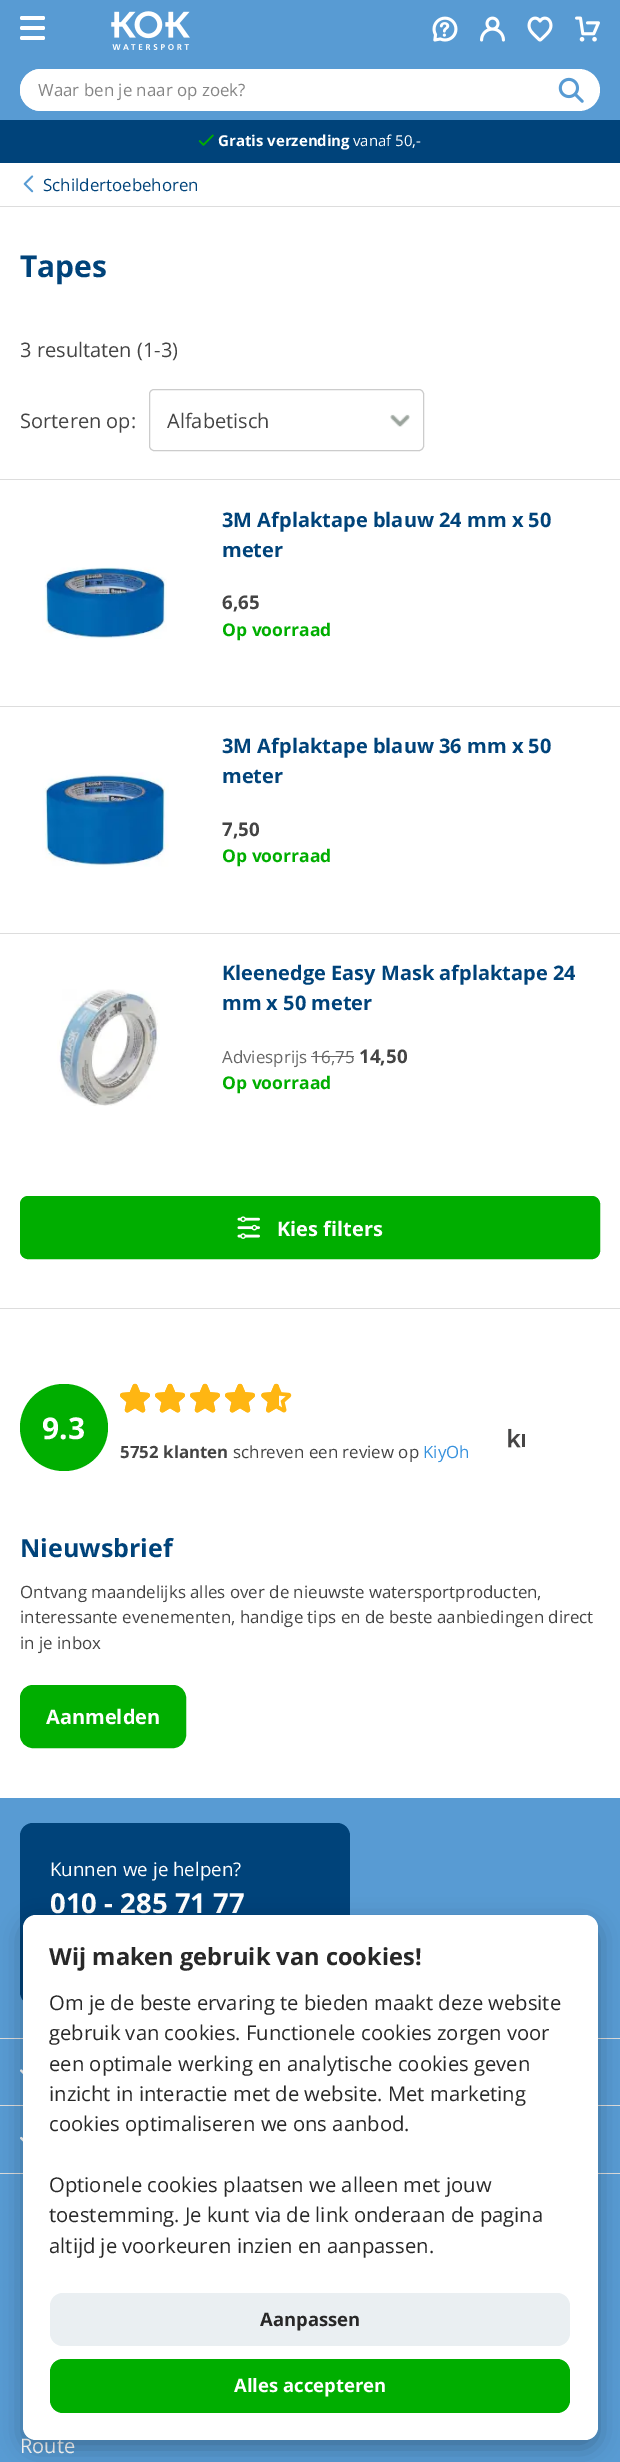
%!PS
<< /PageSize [620 2462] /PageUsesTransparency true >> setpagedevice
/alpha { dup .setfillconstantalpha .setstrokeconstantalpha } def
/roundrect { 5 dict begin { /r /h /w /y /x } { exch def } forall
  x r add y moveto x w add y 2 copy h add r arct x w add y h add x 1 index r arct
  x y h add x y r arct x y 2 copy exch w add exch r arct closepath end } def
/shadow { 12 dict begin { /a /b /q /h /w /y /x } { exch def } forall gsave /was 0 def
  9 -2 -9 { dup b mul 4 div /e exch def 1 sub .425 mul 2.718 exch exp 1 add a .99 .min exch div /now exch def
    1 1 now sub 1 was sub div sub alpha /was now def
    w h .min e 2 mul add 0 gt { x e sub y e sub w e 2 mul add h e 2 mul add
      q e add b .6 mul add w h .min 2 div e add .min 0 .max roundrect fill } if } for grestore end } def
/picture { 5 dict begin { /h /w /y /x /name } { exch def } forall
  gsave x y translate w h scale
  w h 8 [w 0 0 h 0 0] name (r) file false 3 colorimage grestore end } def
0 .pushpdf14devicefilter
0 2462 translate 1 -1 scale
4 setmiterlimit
1 setgray
0 0 620 2462 rectfill
0.345 0.608 0.827 setrgbcolor
0 0 620 120 rectfill
1 setgray
20 26 25 4 2 roundrect fill
20 16 25 4 2 roundrect fill
20 36 25 4 2 roundrect fill
(img1.rgb) 111 11 79 39 picture
(img2.rgb) 432 16 26 26 picture
(img3.rgb) 480 16 25 26 picture
(img4.rgb) 527 16 26 26 picture
(img5.rgb) 575 16 25 26 picture
20 69 580 42 21 roundrect fill
newpath 41 69 moveto 551 69 lineto 555.5 69 559 72.5 559 77 curveto 559 103 lineto 559 107.5 555.5 111 551 111 curveto 41 111 lineto 29.5 111 20 101.5 20 90 curveto 20 78.5 29.5 69 41 69 curveto closepath fill
/OpenSans-Regular [16.9 0 0 -16.9 0 0] selectfont
0.522 setgray
38 96 moveto (Waar ben je naar op zoek?) show
(img6.rgb) 558 77 26 26 picture
0 0.263 0.478 setrgbcolor
0 120 620 43 rectfill
(img7.rgb) 198 134 16 12 picture
/OpenSans-Bold [15 0 0 -15 0 0] selectfont
1 setgray
218 146 moveto (Gratis verzending) show
/OpenSans-Regular [15 0 0 -15 0 0] selectfont
353 146 moveto (vanaf 50,-) show
0.867 setgray
0 206 620 1 rectfill
(img8.rgb) 23 175 11 18 picture
/OpenSans-Regular [16.9 0 0 -16.9 0 0] selectfont
0 0.263 0.478 setrgbcolor
43 191 moveto (Schildertoebehoren) show
/OpenSans-Bold [30 0 0 -30 0 0] selectfont
20 277 moveto (Tapes) show
/OpenSans-Regular [20 0 0 -20 0 0] selectfont
0.267 setgray
20 357 moveto (3 resultaten \(1-3\)) show
20 428 moveto (Sorteren op:) show
(img9.rgb) 390 414 20 13 picture
0.8 setgray
149.5 389.5 274 61 4.5 roundrect stroke
0.267 setgray
167 428 moveto (Alfabetisch) show
0.867 setgray
0 479 620 1 rectfill
(img10.rgb) 42 567 125 72 picture
/OpenSans-Bold [20 0 0 -20 0 0] selectfont
0 0.263 0.478 setrgbcolor
222 527 moveto (3M Afplaktape blauw 24 mm x 50) show
222 557 moveto (meter) show
/OpenSans-Bold [18.75 0 0 -18.75 0 0] selectfont
0.267 setgray
222 609 moveto (6,65) show
/OpenSans-Bold [17.5 0 0 -17.5 0 0] selectfont
0 0.682 0 setrgbcolor
222 636 moveto (Op voorraad) show
0.867 setgray
0 706 620 1 rectfill
(img11.rgb) 42 772 127 95 picture
/OpenSans-Bold [20 0 0 -20 0 0] selectfont
0 0.263 0.478 setrgbcolor
222 753 moveto (3M Afplaktape blauw 36 mm x 50) show
222 783 moveto (meter) show
/OpenSans-Bold [18.75 0 0 -18.75 0 0] selectfont
0.267 setgray
222 836 moveto (7,50) show
/OpenSans-Bold [17.5 0 0 -17.5 0 0] selectfont
0 0.682 0 setrgbcolor
222 862 moveto (Op voorraad) show
0.867 setgray
0 933 620 1 rectfill
(img12.rgb) 57 989 103 117 picture
/OpenSans-Bold [20 0 0 -20 0 0] selectfont
0 0.263 0.478 setrgbcolor
222 980 moveto (Kleenedge Easy Mask afplaktape 24) show
222 1010 moveto (mm x 50 meter) show
/OpenSans-Regular [16.9 0 0 -16.9 0 0] selectfont
0.4 setgray
222 1063 moveto (Adviesprijs 16,75) show
311 1056 43 1 rectfill
/OpenSans-Bold [18.75 0 0 -18.75 0 0] selectfont
0.267 setgray
359 1063 moveto (14,50) show
/OpenSans-Bold [17.5 0 0 -17.5 0 0] selectfont
0 0.682 0 setrgbcolor
222 1089 moveto (Op voorraad) show
20.5 1196.5 579 62 7.5 roundrect gsave fill grestore
stroke
(img13.rgb) 237 1216 23 23 picture
/OpenSans-Bold [20 0 0 -20 0 0] selectfont
1 setgray
277 1236 moveto (Kies filters) show
0.867 setgray
0 1308 620 1 rectfill
0 0.682 0 setrgbcolor
20 1384 88 87 43.5 roundrect fill
/OpenSans-Bold [30 0 0 -30 0 0] selectfont
1 setgray
42 1439 moveto (9.3) show
(img14.rgb) 508 1428 17 20 picture
(img15.rgb) 120 1383 30 30 picture
(img15.rgb) 155 1383 30 30 picture
(img15.rgb) 190 1383 30 30 picture
(img15.rgb) 225 1383 30 30 picture
(img16.rgb) 261 1383 31 30 picture
(img17.rgb) 120 1384 30 29 picture
(img17.rgb) 155 1384 30 29 picture
(img17.rgb) 190 1384 30 29 picture
(img17.rgb) 225 1384 30 29 picture
(img18.rgb) 261 1384 18 29 picture
/OpenSans-Bold [16.9 0 0 -16.9 0 0] selectfont
0.267 setgray
120 1458 moveto (5752 klanten) show
/OpenSans-Regular [16.9 0 0 -16.9 0 0] selectfont
233 1458 moveto (schreven een review op) show
0.212 0.569 0.867 setrgbcolor
423 1458 moveto (KiyOh) show
/OpenSans-Bold [25 0 0 -25 0 0] selectfont
0 0.263 0.478 setrgbcolor
20 1557 moveto (Nieuwsbrief) show
/OpenSans-Regular [16.9 0 0 -16.9 0 0] selectfont
0.267 setgray
20 1598 moveto (Ontvang maandelijks alles over de nieuwste watersportproducten,) show
20 1623 moveto (interessante evenementen, handige tips en de beste aanbiedingen direct) show
20 1649 moveto (in je inbox) show
0 0.682 0 setrgbcolor
20.5 1685.5 165 62 12.5 roundrect gsave fill grestore
stroke
/OpenSans-Bold [20 0 0 -20 0 0] selectfont
1 setgray
46 1724 moveto (Aanmelden) show
0.345 0.608 0.827 setrgbcolor
0 1798 620 664 rectfill
0 0.263 0.478 setrgbcolor
20 1823 330 182 13 roundrect fill
/OpenSans-Regular [18.75 0 0 -18.75 0 0] selectfont
1 setgray
50 1876 moveto (Kunnen we je helpen?) show
/OpenSans-Bold [27.5 0 0 -27.5 0 0] selectfont
50 1913 moveto (010 - 285 71 77) show
0.867 setgray
0 2038 620 1 rectfill
(img19.rgb) 20 2069 3 5 picture
0 2105 620 1 rectfill
(img20.rgb) 20 2136 3 6 picture
0 2173 620 1 rectfill
/OpenSans-Regular [20 0 0 -20 0 0] selectfont
1 setgray
20 2453 moveto (Route) show
0.008 0.008 0.012 setrgbcolor
23 1923 575 525 13 11.5 0.28 shadow
1 setgray
23 1915 575 525 13 roundrect fill
/OpenSans-Bold [23.6 0 0 -23.6 0 0] selectfont
0.157 setgray
49 1965 moveto (Wij maken gebruik van cookies!) show
/OpenSans-Regular [20.25 0 0 -20.25 0 0] selectfont
49 2010 moveto (Om je de beste ervaring te bieden maakt deze website) show
49 2040 moveto (gebruik van cookies. Functionele cookies zorgen voor) show
49 2071 moveto (een optimale werking en analytische cookies geven) show
49 2101 moveto (inzicht in interactie met de website. Met marketing) show
49 2131 moveto (cookies optimaliseren we ons aanbod.) show
49 2192 moveto (Optionele cookies plaatsen we alleen met jouw) show
49 2222 moveto (toestemming. Je kunt via de link onderaan de pagina) show
49 2253 moveto (altijd je voorkeuren inzien en aanpassen.) show
0.918 0.937 0.949 setrgbcolor
50 2293 520 53 13 roundrect fill
/OpenSans-Bold [18.5 0 0 -18.5 0 0] selectfont
0.157 setgray
260 2326 moveto (Aanpassen) show
0 0.682 0 setrgbcolor
50 2359 520 54 13 roundrect fill
1 setgray
234 2392 moveto (Alles accepteren) show
.poppdf14devicefilter showpage
